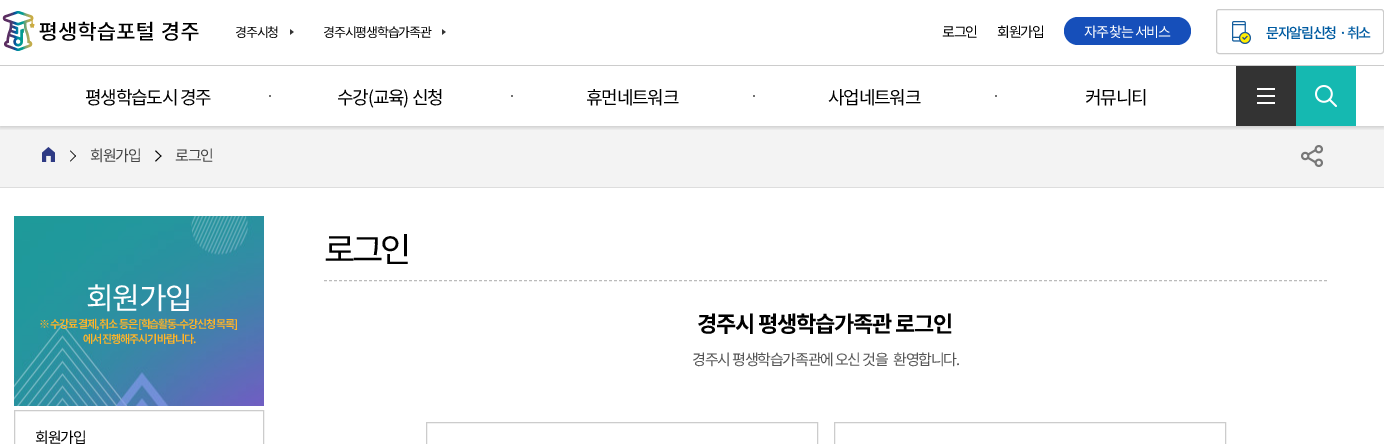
%!PS
<< /PageSize [1384 444] /PageUsesTransparency true >> setpagedevice
/alpha { dup .setfillconstantalpha .setstrokeconstantalpha } def
/roundrect { 5 dict begin { /r /h /w /y /x } { exch def } forall
  x r add y moveto x w add y 2 copy h add r arct x w add y h add x 1 index r arct
  x y h add x y r arct x y 2 copy exch w add exch r arct closepath end } def
/shadow { 12 dict begin { /a /b /q /h /w /y /x } { exch def } forall gsave /was 0 def
  9 -2 -9 { dup b mul 4 div /e exch def 1 sub .425 mul 2.718 exch exp 1 add a .99 .min exch div /now exch def
    1 1 now sub 1 was sub div sub alpha /was now def
    w h .min e 2 mul add 0 gt { x e sub y e sub w e 2 mul add h e 2 mul add
      q e add b .6 mul add w h .min 2 div e add .min 0 .max roundrect fill } if } for grestore end } def
/picture { 5 dict begin { /h /w /y /x /name } { exch def } forall
  gsave x y translate w h scale
  w h 8 [w 0 0 h 0 0] name (r) file false 3 colorimage grestore end } def
0 .pushpdf14devicefilter
0 444 translate 1 -1 scale
4 setmiterlimit
1 setgray
0 0 1384 444 rectfill
0.953 setgray
0 126 1384 61 rectfill
gsave
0 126 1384 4 rectclip
0 setgray
0 1 1384 126 0 2.5 0.2 shadow
grestore
0.8 setgray
0 65 1384 1 rectfill
(img1.rgb) 2 11 197 40 picture
(img2.rgb) 290 29 4 6 picture
/NotoSansKR-Regular [13 0 0 -13 0 0] selectfont
0 setgray
235 37 moveto -1.2 0 (경주시청) ashow
(img2.rgb) 442 29 4 6 picture
323 37 moveto -1.2 0 (경주시평생학습가족관) ashow
/NotoSansKR-Regular [14 0 0 -14 0 0] selectfont
942 37 moveto -1.2 0 (로그인) ashow
997 37 moveto -1.2 0 (회원가입) ashow
0.086 0.31 0.729 setrgbcolor
1064 17 127 28 14 roundrect fill
1 setgray
1084 37 moveto -1.2 0 (자주 찾는 서비스) ashow
0.8 setgray
1216.5 9.5 167 44 2.5 roundrect stroke
(img3.rgb) 1232 21 19 23 picture
/NotoSansKR-Medium [14 0 0 -14 0 0] selectfont
0 0.357 0.631 setrgbcolor
1266 38 moveto -1.2 0 (문자알림신청) ashow
1339 38 moveto -1 0 32 -1.2 0 (· 취소) awidthshow
/NotoSansKR-Regular [18 0 0 -18 0 0] selectfont
0 setgray
85 104 moveto -1.2 0 (평생학습도시 경주) ashow
0.443 setgray
269 95 2 2 rectfill
0 setgray
337 104 moveto 1 0 32 -1.2 0 (수강\(교육\) 신청) awidthshow
0.443 setgray
511 95 2 2 rectfill
0 setgray
586 104 moveto -1.2 0 (휴먼네트워크) ashow
0.443 setgray
753 95 2 2 rectfill
0 setgray
828 104 moveto -1.2 0 (사업네트워크) ashow
0.443 setgray
995 95 2 2 rectfill
0 setgray
1085 104 moveto -1.2 0 (커뮤니티) ashow
0.2 setgray
1236 66 60 60 rectfill
(img4.rgb) 1257 88 18 16 picture
0.082 0.725 0.694 setrgbcolor
1296 66 60 60 rectfill
(img5.rgb) 1315 85 22 22 picture
0.733 setgray
[3 2] 0 setdash
newpath 324 280.5 moveto 1328 280.5 lineto stroke
0.867 setgray
0 187 1384 1 rectfill
(img6.rgb) 42 147 13 15 picture
0 setgray
newpath 70 151 moveto 70.5 150.5 lineto 76 156 lineto 75.5 156.5 lineto closepath fill
newpath 70 161 moveto 75.5 155.5 lineto 76 156 lineto 70.5 161.5 lineto closepath fill
/NotoSansKR-Regular [15 0 0 -15 0 0] selectfont
0.267 setgray
90 161 moveto -1.2 0 (회원가입) ashow
0 setgray
newpath 155 151 moveto 156 150.5 lineto 161.5 156 lineto 161 156.5 lineto closepath fill
newpath 155 161 moveto 161 155.5 lineto 161.5 156 lineto 156 161.5 lineto closepath fill
0.267 setgray
175 161 moveto -1.2 0 (로그인) ashow
(img7.rgb) 1301 145 22 22 picture
/NotoSansKR-Regular [34 0 0 -34 0 0] selectfont
0 setgray
324 262 moveto -3.5 0 (로그인) ashow
/NotoSansKR-Bold [22 0 0 -22 0 0] selectfont
697 332 moveto -1.2 0 (경주시 평생학습가족관 로그인) ashow
/NotoSansKR-Regular [15 0 0 -15 0 0] selectfont
0.333 setgray
692 365 moveto -1.2 0 (경주시 평생학습가족관에 오신 것을) ashow
893 365 moveto -1.2 0 (환영합니다.) ashow
0.8 setgray
[] 0 setdash
426.5 422.5 391 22 rectstroke
834.5 422.5 391 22 rectstroke
(img8.rgb) 14 216 250 190 picture
/NotoSansKR-Regular [30 0 0 -30 0 0] selectfont
1 setgray
86 309 moveto -1.2 0 (회원가입) ashow
/NotoSansKR-SemiBold [11 0 0 -11 0 0] selectfont
1 0.706 0.157 setrgbcolor
39 328 moveto -1.2 0 (※ 수강료 결제, 취소 등은 [학습활동-수강신청 목록]) ashow
83 343 moveto -1.2 0 (에서 진행해주시기 바랍니다.) ashow
0.8 setgray
14.5 410.5 249 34 rectstroke
/NotoSansKR-Regular [15 0 0 -15 0 0] selectfont
0 setgray
35 443 moveto -1.2 0 (회원가입) ashow
.poppdf14devicefilter showpage
